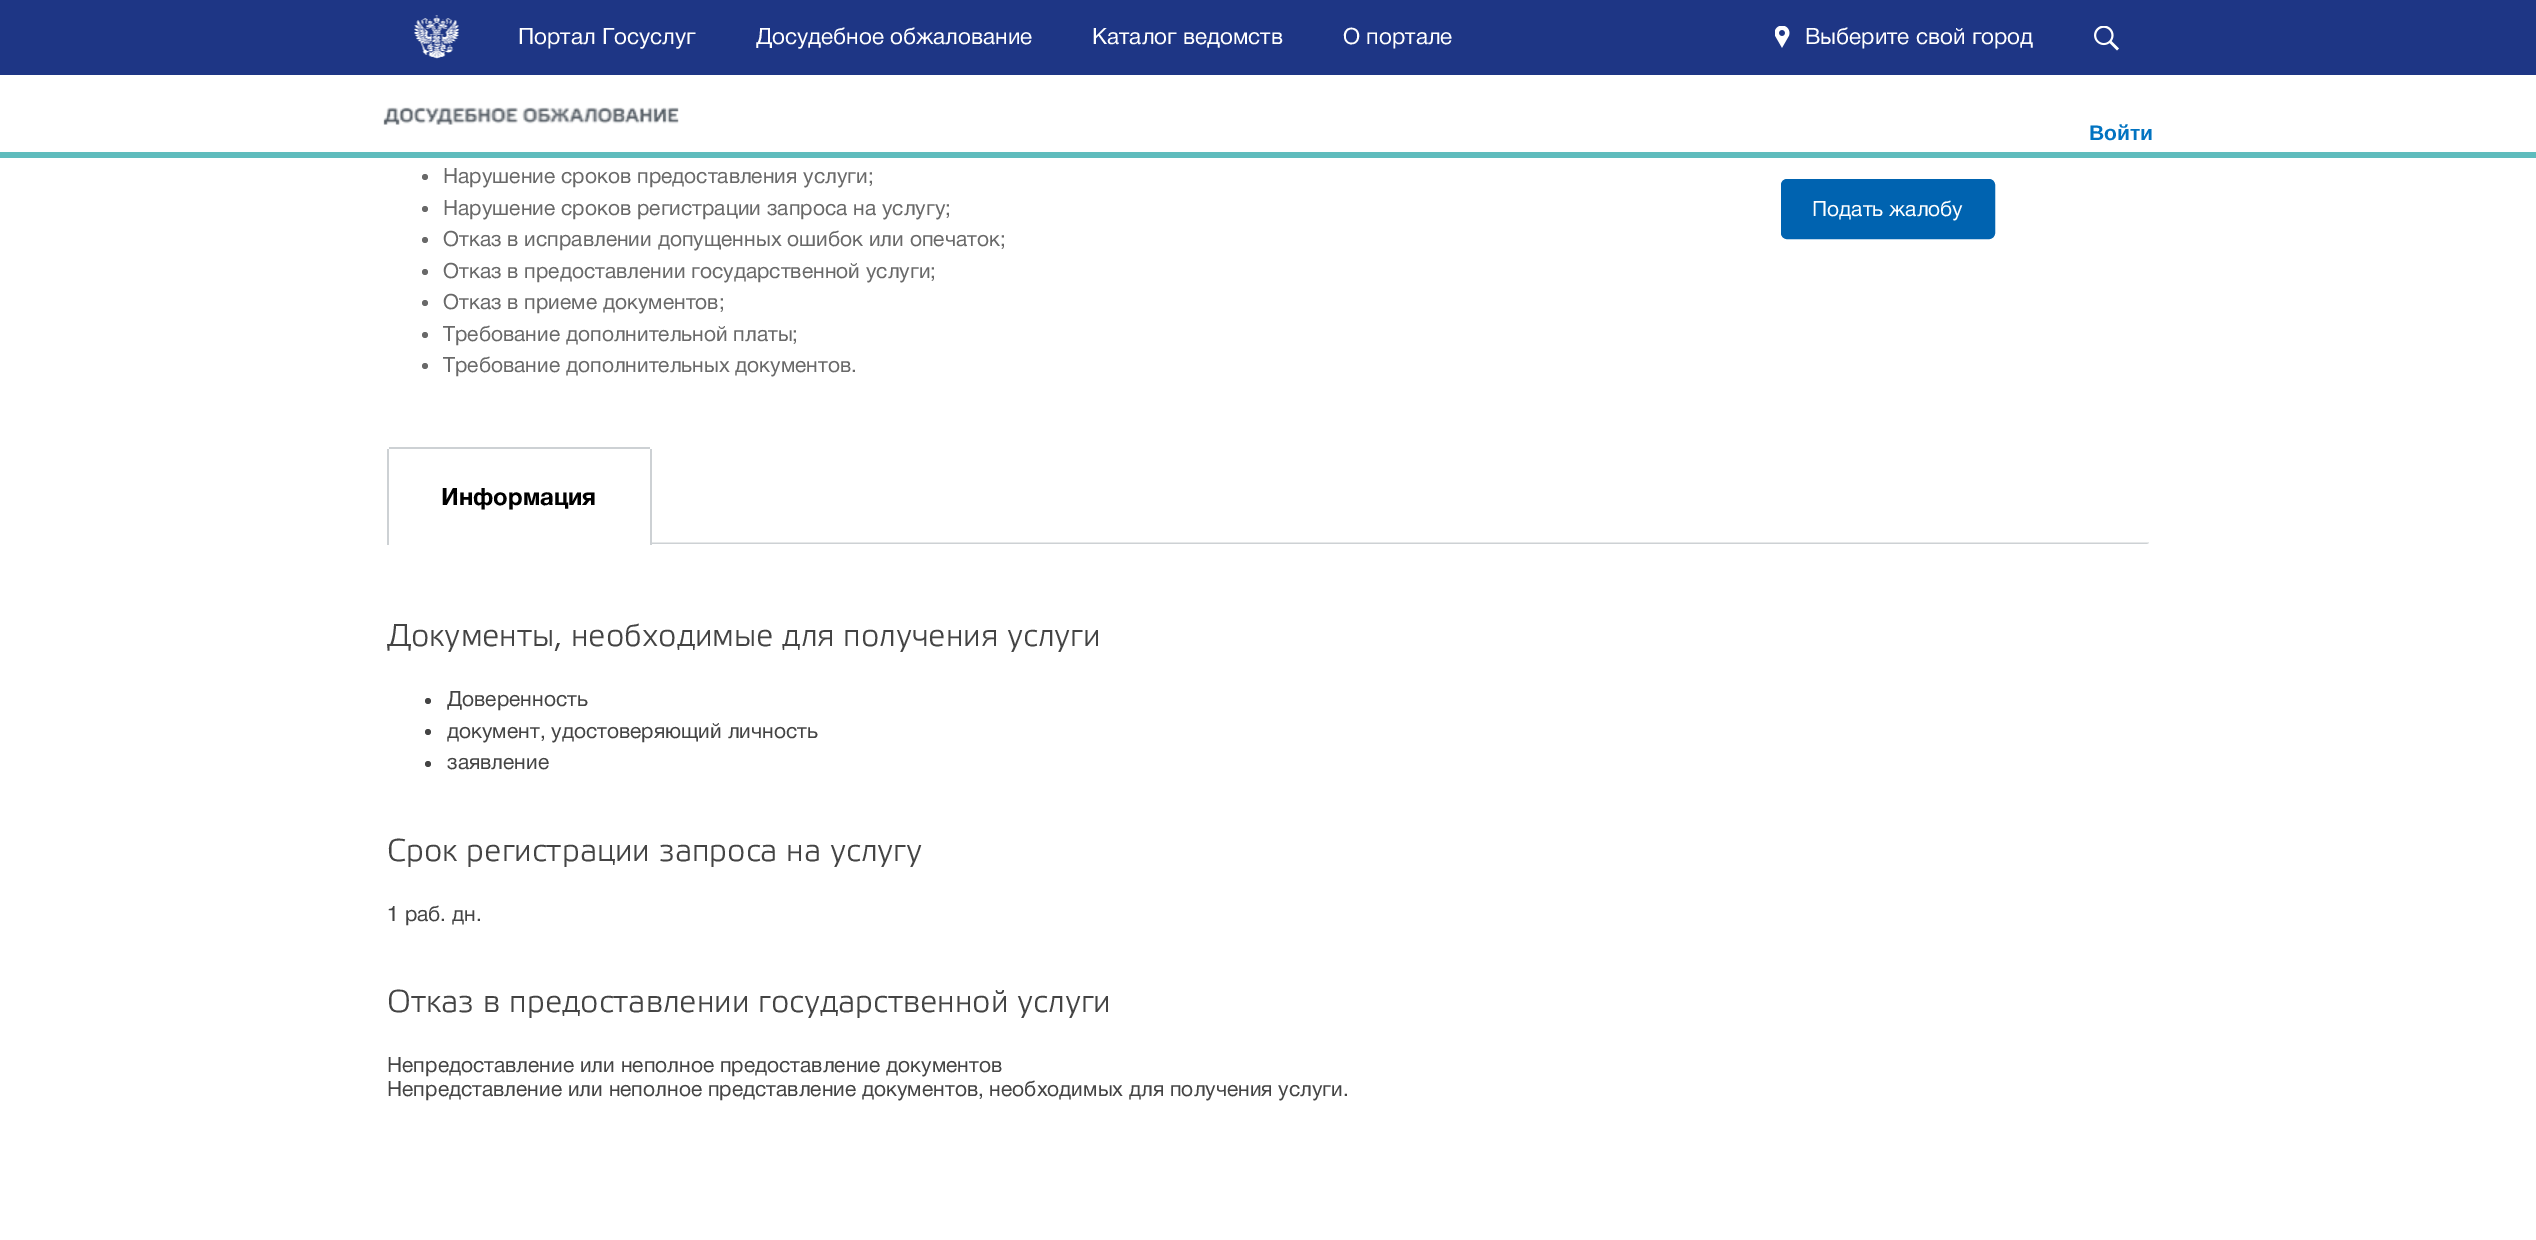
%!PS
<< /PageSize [2536 1240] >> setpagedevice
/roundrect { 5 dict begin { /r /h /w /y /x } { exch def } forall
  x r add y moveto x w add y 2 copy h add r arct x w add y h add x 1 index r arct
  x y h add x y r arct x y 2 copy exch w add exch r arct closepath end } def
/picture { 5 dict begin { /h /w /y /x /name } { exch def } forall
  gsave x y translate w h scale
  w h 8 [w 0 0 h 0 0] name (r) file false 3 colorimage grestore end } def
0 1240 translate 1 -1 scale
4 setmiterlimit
1 setgray
0 0 2536 1240 rectfill
0.118 0.212 0.522 setrgbcolor
0 0 2536 75 rectfill
(img1.rgb) 414 15 46 44 picture
/HelveticaNeue-Regular [22.5 0 0 -22.5 0 0] selectfont
1 setgray
518 44 moveto (Портал Госуслуг) show
756 44 moveto (Досудебное обжалование) show
1092 44 moveto (Каталог ведомств) show
1343 44 moveto (О портале) show
(img2.rgb) 1775 26 15 22 picture
1805 44 moveto (Выберите свой город) show
(img3.rgb) 2094 26 25 25 picture
0.373 0.737 0.741 setrgbcolor
0 152 2536 6 rectfill
(img4.rgb) 383 107 296 18 picture
/LiberationSans-Bold [21 0 0 -21 0 0] selectfont
0.004 0.451 0.757 setrgbcolor
2089 140 moveto (Войти) show
0.412 setgray
newpath 425 177 3 0 360 arc closepath fill
/HelveticaNeue-Regular [21 0 0 -21 0 0] selectfont
443 183 moveto (Нарушение сроков предоставления услуги;) show
newpath 425 209 3 0 360 arc closepath fill
443 215 moveto (Нарушение сроков регистрации запроса на услугу;) show
newpath 425 240 3 0 360 arc closepath fill
443 246 moveto (Отказ в исправлении допущенных ошибок или опечаток;) show
newpath 425 272 3 0 360 arc closepath fill
443 278 moveto (Отказ в предоставлении государственной услуги;) show
newpath 425 303 3 0 360 arc closepath fill
443 309 moveto (Отказ в приеме документов;) show
newpath 425 335 3 0 360 arc closepath fill
443 341 moveto (Требование дополнительной платы;) show
newpath 425 366 3 0 360 arc closepath fill
443 372 moveto (Требование дополнительных документов.) show
0 0.388 0.69 setrgbcolor
1782 180 212 58 5 roundrect gsave fill grestore
2 setlinewidth
stroke
1 setgray
1812 216 moveto (Подать жалобу) show
(img5.rgb) 387 542 1762 2 picture
newpath 390 447 moveto 648 447 lineto 649.5 447 651 448.5 651 450 curveto 651 545 lineto 390 545 lineto 388.5 545 387 543.5 387 542 curveto 387 450 lineto 387 448.5 388.5 447 390 447 curveto closepath fill
0.804 0.82 0.831 setrgbcolor
389 447 261 2 rectfill
650 449 2 96 rectfill
gsave
387 447 1763 98 3 roundrect clip newpath
387 449 2 96 rectfill
grestore
/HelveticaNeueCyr-Bold [24 0 0 -24 0 0] selectfont
0 setgray
441 505 moveto (Информация) show
/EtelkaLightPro-Regular [31.5 0 0 -31.5 0 0] selectfont
0.267 setgray
387 646 moveto (Документы, необходимые для получения услуги) show
newpath 428 701 3 0 360 arc closepath fill
/HelveticaNeue-Regular [21 0 0 -21 0 0] selectfont
447 706 moveto (Доверенность) show
newpath 428 732 3 0 360 arc closepath fill
447 738 moveto (документ, удостоверяющий личность) show
newpath 428 764 3 0 360 arc closepath fill
447 769 moveto (заявление) show
/EtelkaLightPro-Regular [31.5 0 0 -31.5 0 0] selectfont
387 861 moveto (Cрок регистрации запроса на услугу) show
/HelveticaNeue-Regular [21 0 0 -21 0 0] selectfont
387 921 moveto (1 раб. дн.) show
/EtelkaLightPro-Regular [31.5 0 0 -31.5 0 0] selectfont
387 1012 moveto (Отказ в предоставлении государственной услуги) show
/HelveticaNeue-Regular [21 0 0 -21 0 0] selectfont
387 1072 moveto (Непредоставление или неполное предоставление документов) show
387 1096 moveto (Непредставление или неполное представление документов, необходимых для получения услуги.) show
showpage
